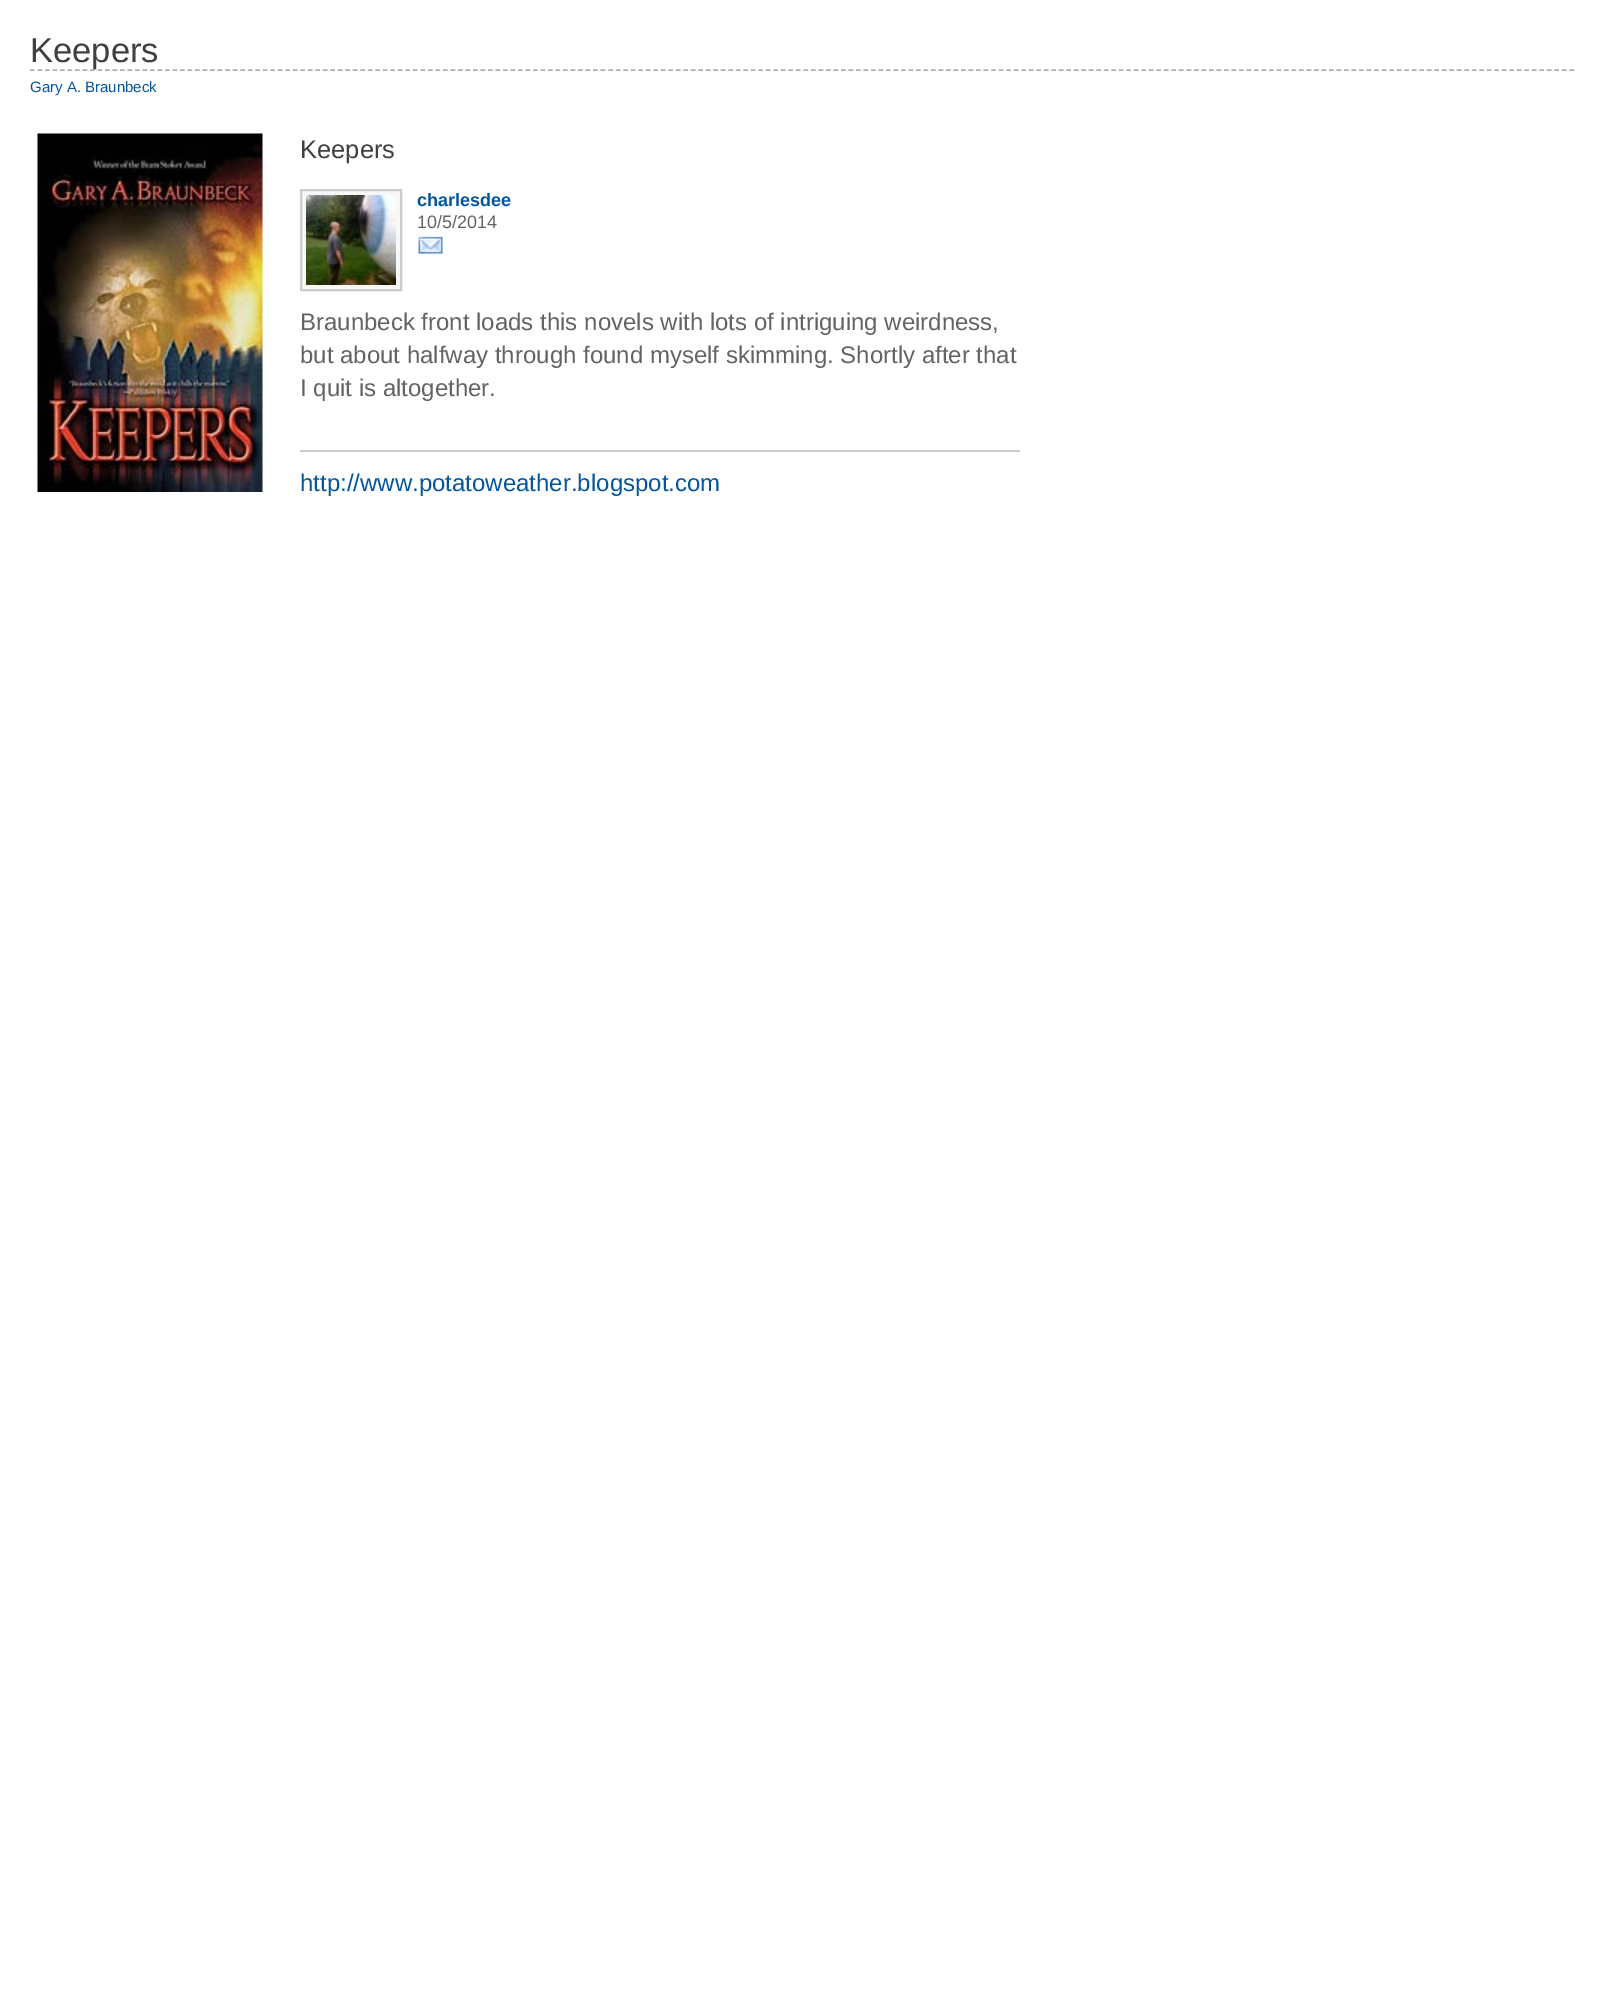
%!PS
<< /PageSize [1604 2013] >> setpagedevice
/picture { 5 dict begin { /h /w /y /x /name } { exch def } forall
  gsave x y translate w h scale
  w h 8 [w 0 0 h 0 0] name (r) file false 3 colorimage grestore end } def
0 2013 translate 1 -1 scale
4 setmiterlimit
1 setgray
0 0 1604 2013 rectfill
0.678 0.682 0.678 setrgbcolor
1.5 setlinewidth
[4.5 3.01] 0 setdash
newpath 30 70 moveto 1575 70 lineto stroke
/LiberationSans-Regular [34.5 0 0 -34.5 0 0] selectfont
0.247 0.251 0.251 setrgbcolor
30 62 moveto (Keepers) show
/LiberationSans-Regular [15 0 0 -15 0 0] selectfont
0.012 0.337 0.616 setrgbcolor
30 92 moveto (Gary A. Braunbeck) show
(img1.rgb) 37 133 226 359 picture
/LiberationSans-Regular [25.5 0 0 -25.5 0 0] selectfont
0.247 0.251 0.251 setrgbcolor
300 158 moveto (Keepers) show
0.969 setgray
newpath 301 190 moveto 401 190 lineto 401 290 lineto 301 290 lineto closepath gsave fill grestore
0.8 setgray
2 setlinewidth
[] 0 setdash
stroke
(img2.rgb) 306 195 90 90 picture
/LiberationSans-Bold [18 0 0 -18 0 0] selectfont
0.012 0.337 0.616 setrgbcolor
417 206 moveto (charlesdee) show
/LiberationSans-Regular [18 0 0 -18 0 0] selectfont
0.388 setgray
417 228 moveto (10/5/2014) show
(img3.rgb) 418 236 25 18 picture
/LiberationSans-Regular [24 0 0 -24 0 0] selectfont
300 330 moveto (Braunbeck front loads this novels with lots of intriguing weirdness,) show
300 363 moveto (but about halfway through found myself skimming. Shortly after that) show
300 396 moveto (I quit is altogether.) show
0.8 setgray
300 450 720 2 rectfill
0.012 0.337 0.616 setrgbcolor
300 491 moveto (http://www.potatoweather.blogspot.com) show
showpage
